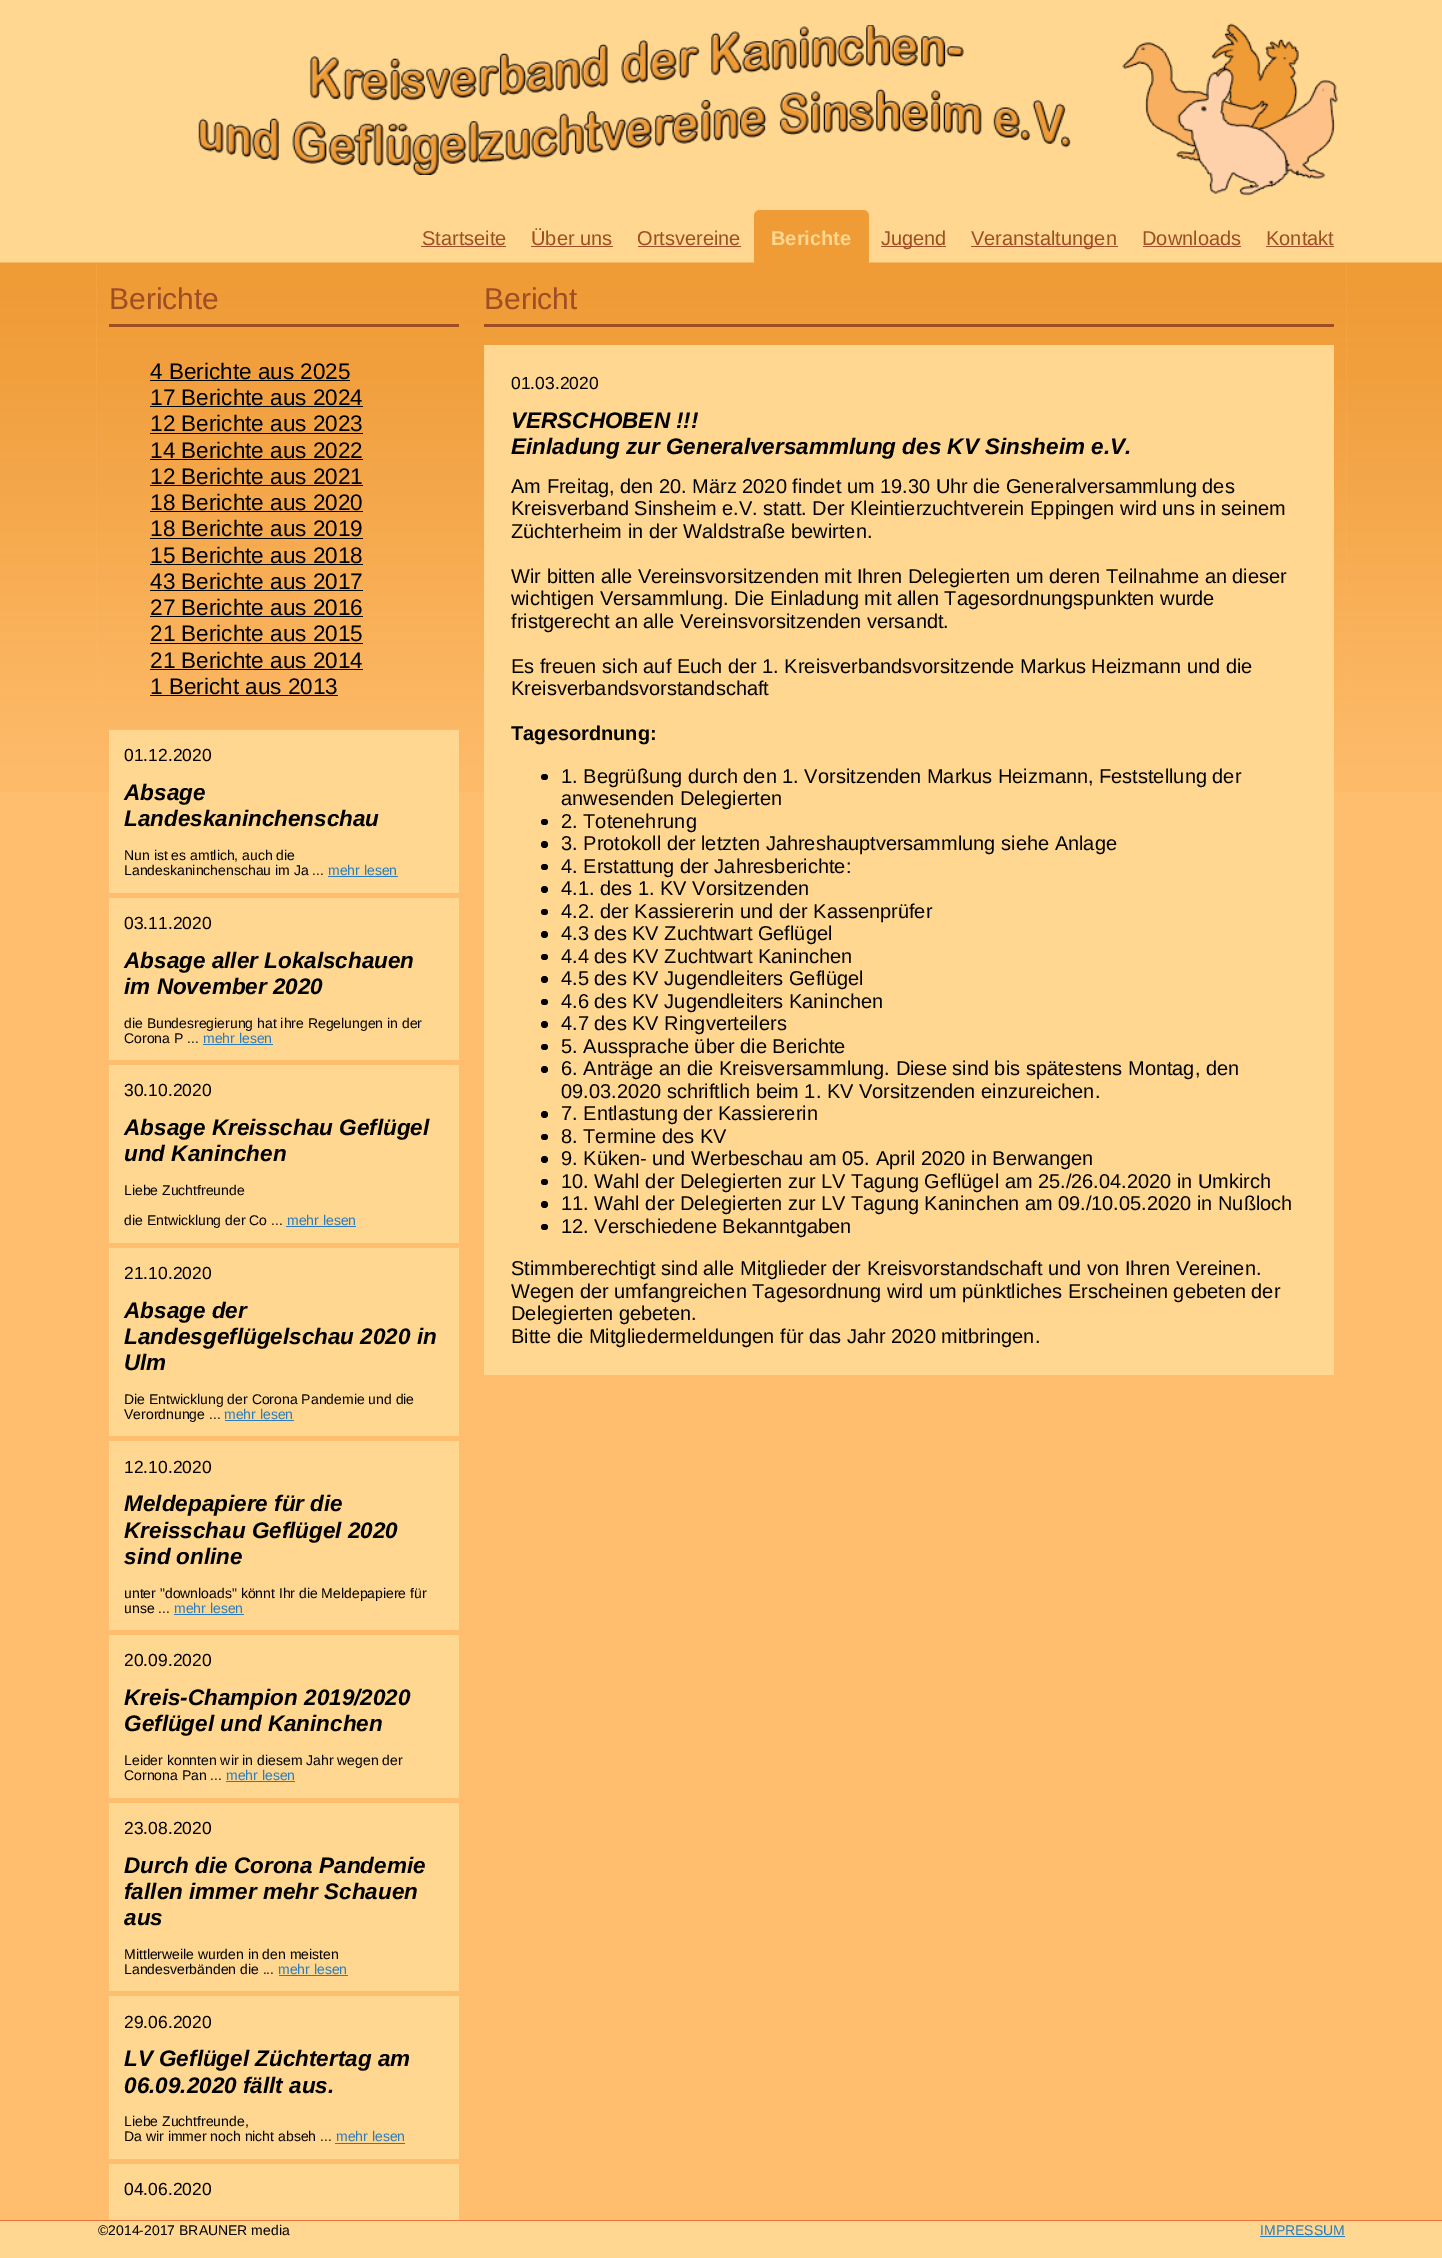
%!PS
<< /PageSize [1442 2258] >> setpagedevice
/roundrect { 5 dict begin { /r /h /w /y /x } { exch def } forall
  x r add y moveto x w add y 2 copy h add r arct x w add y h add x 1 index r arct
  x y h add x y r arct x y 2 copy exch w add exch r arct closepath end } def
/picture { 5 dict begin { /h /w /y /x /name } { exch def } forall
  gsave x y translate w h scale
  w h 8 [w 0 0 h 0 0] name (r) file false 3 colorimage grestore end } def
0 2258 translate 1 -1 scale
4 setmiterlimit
1 0.741 0.431 setrgbcolor
0 0 1442 2258 rectfill
1 0.843 0.569 setrgbcolor
0 0 96 263 rectfill
1 0.843 0.565 setrgbcolor
96 0 1250 263 rectfill
(img1.rgb) 198 25 873 150 picture
(img2.rgb) 1122 23 216 173 picture
/LiberationSans-Regular [20 0 0 -20 0 0] selectfont
0.62 0.302 0.145 setrgbcolor
422 245 moveto (Startseite) show
421 246 85 1 rectfill
531 245 moveto (Über uns) show
531 246 82 1 rectfill
637 245 moveto (Ortsvereine) show
638 246 103 1 rectfill
1 0.843 0.569 setrgbcolor
1346 0 96 263 rectfill
(img3.rgb) 0 262 97 530 picture
(img4.rgb) 96 262 1251 530 picture
0.937 0.612 0.212 setrgbcolor
754 210 115 56 6 roundrect fill
/LiberationSans-Bold [20 0 0 -20 0 0] selectfont
1 0.843 0.565 setrgbcolor
771 245 moveto (Berichte) show
0.62 0.302 0.145 setrgbcolor
881 246 65 1 rectfill
/LiberationSans-Regular [20 0 0 -20 0 0] selectfont
881 245 moveto (Jugend) show
971 246 147 1 rectfill
971 245 moveto (Veranstaltungen) show
1142 245 moveto (Downloads) show
1143 246 98 1 rectfill
1266 245 moveto (Kontakt) show
1266 246 68 1 rectfill
/LiberationSans-Regular [30 0 0 -30 0 0] selectfont
109 309 moveto (Berichte) show
484 309 moveto (Bericht) show
109 324 350 3 rectfill
484 324 850 3 rectfill
/LiberationSans-Regular [22.5 0 0 -22.5 0 0] selectfont
0 setgray
150 379 moveto (4 Berichte aus 2025) show
150 380 200 1 rectfill
150 405 moveto (17 Berichte aus 2024) show
150 406 213 1 rectfill
150 431 moveto (12 Berichte aus 2023) show
150 433 213 1 rectfill
150 458 moveto (14 Berichte aus 2022) show
150 459 213 1 rectfill
150 484 moveto (12 Berichte aus 2021) show
150 485 213 1 rectfill
150 510 moveto (18 Berichte aus 2020) show
150 511 213 1 rectfill
150 536 moveto (18 Berichte aus 2019) show
150 538 213 1 rectfill
150 563 moveto (15 Berichte aus 2018) show
150 564 213 1 rectfill
150 589 moveto (43 Berichte aus 2017) show
150 590 213 1 rectfill
150 615 moveto (27 Berichte aus 2016) show
150 616 213 1 rectfill
150 641 moveto (21 Berichte aus 2015) show
150 643 213 1 rectfill
150 668 moveto (21 Berichte aus 2014) show
150 669 213 1 rectfill
150 694 moveto (1 Bericht aus 2013) show
150 695 188 1 rectfill
1 0.843 0.565 setrgbcolor
109 730 350 163 rectfill
/LiberationSans-Regular [17.5 0 0 -17.5 0 0] selectfont
0 setgray
124 761 moveto (01.12.2020) show
/LiberationSans-BoldItalic [22.5 0 0 -22.5 0 0] selectfont
124 800 moveto (Absage) show
124 826 moveto (Landeskaninchenschau) show
/LiberationSans-Regular [14 0 0 -14 0 0] selectfont
124 860 moveto (Nun ist es amtlich, auch die) show
124 875 moveto (Landeskaninchenschau im Ja ...) show
0.165 0.486 0.737 setrgbcolor
328 875 moveto (mehr lesen) show
328 876 70 1 rectfill
1 0.843 0.565 setrgbcolor
109 898 350 162 rectfill
/LiberationSans-Regular [17.5 0 0 -17.5 0 0] selectfont
0 setgray
124 929 moveto (03.11.2020) show
/LiberationSans-BoldItalic [22.5 0 0 -22.5 0 0] selectfont
124 968 moveto (Absage aller Lokalschauen) show
124 994 moveto (im November 2020) show
/LiberationSans-Regular [14 0 0 -14 0 0] selectfont
124 1028 moveto (die Bundesregierung hat ihre Regelungen in der) show
124 1043 moveto (Corona P ...) show
0.165 0.486 0.737 setrgbcolor
203 1043 moveto (mehr lesen) show
203 1044 70 1 rectfill
1 0.843 0.565 setrgbcolor
109 1065 350 178 rectfill
/LiberationSans-Regular [17.5 0 0 -17.5 0 0] selectfont
0 setgray
124 1096 moveto (30.10.2020) show
/LiberationSans-BoldItalic [22.5 0 0 -22.5 0 0] selectfont
124 1135 moveto (Absage Kreisschau Geflügel) show
124 1161 moveto (und Kaninchen) show
/LiberationSans-Regular [14 0 0 -14 0 0] selectfont
124 1195 moveto (Liebe Zuchtfreunde) show
124 1225 moveto (die Entwicklung der Co ...) show
0.165 0.486 0.737 setrgbcolor
287 1225 moveto (mehr lesen) show
286 1226 70 1 rectfill
1 0.843 0.565 setrgbcolor
109 1248 350 188 rectfill
/LiberationSans-Regular [17.5 0 0 -17.5 0 0] selectfont
0 setgray
124 1279 moveto (21.10.2020) show
/LiberationSans-BoldItalic [22.5 0 0 -22.5 0 0] selectfont
124 1318 moveto (Absage der) show
124 1344 moveto (Landesgeflügelschau 2020 in) show
124 1370 moveto (Ulm) show
/LiberationSans-Regular [14 0 0 -14 0 0] selectfont
124 1404 moveto (Die Entwicklung der Corona Pandemie und die) show
124 1419 moveto (Verordnunge ...) show
0.165 0.486 0.737 setrgbcolor
224 1419 moveto (mehr lesen) show
225 1420 69 1 rectfill
1 0.843 0.565 setrgbcolor
109 1441 350 189 rectfill
/LiberationSans-Regular [17.5 0 0 -17.5 0 0] selectfont
0 setgray
124 1473 moveto (12.10.2020) show
/LiberationSans-BoldItalic [22.5 0 0 -22.5 0 0] selectfont
124 1511 moveto (Meldepapiere für die) show
124 1538 moveto (Kreisschau Geflügel 2020) show
124 1564 moveto (sind online) show
/LiberationSans-Regular [14 0 0 -14 0 0] selectfont
124 1598 moveto (unter "downloads" könnt Ihr die Meldepapiere für) show
124 1613 moveto (unse ...) show
0.165 0.486 0.737 setrgbcolor
174 1613 moveto (mehr lesen) show
174 1614 70 1 rectfill
1 0.843 0.565 setrgbcolor
109 1635 350 163 rectfill
/LiberationSans-Regular [17.5 0 0 -17.5 0 0] selectfont
0 setgray
124 1666 moveto (20.09.2020) show
/LiberationSans-BoldItalic [22.5 0 0 -22.5 0 0] selectfont
124 1705 moveto (Kreis-Champion 2019/2020) show
124 1731 moveto (Geflügel und Kaninchen) show
/LiberationSans-Regular [14 0 0 -14 0 0] selectfont
124 1765 moveto (Leider konnten wir in diesem Jahr wegen der) show
124 1780 moveto (Cornona Pan ...) show
0.165 0.486 0.737 setrgbcolor
226 1780 moveto (mehr lesen) show
226 1781 69 1 rectfill
1 0.843 0.565 setrgbcolor
109 1803 350 188 rectfill
/LiberationSans-Regular [17.5 0 0 -17.5 0 0] selectfont
0 setgray
124 1834 moveto (23.08.2020) show
/LiberationSans-BoldItalic [22.5 0 0 -22.5 0 0] selectfont
124 1873 moveto (Durch die Corona Pandemie) show
124 1899 moveto (fallen immer mehr Schauen) show
124 1925 moveto (aus) show
/LiberationSans-Regular [14 0 0 -14 0 0] selectfont
124 1959 moveto (Mittlerweile wurden in den meisten) show
124 1974 moveto (Landesverbänden die ...) show
0.165 0.486 0.737 setrgbcolor
278 1974 moveto (mehr lesen) show
279 1975 69 1 rectfill
1 0.843 0.565 setrgbcolor
109 1996 350 163 rectfill
/LiberationSans-Regular [17.5 0 0 -17.5 0 0] selectfont
0 setgray
124 2028 moveto (29.06.2020) show
/LiberationSans-BoldItalic [22.5 0 0 -22.5 0 0] selectfont
124 2066 moveto (LV Geflügel Züchtertag am) show
124 2093 moveto (06.09.2020 fällt aus.) show
/LiberationSans-Regular [14 0 0 -14 0 0] selectfont
124 2126 moveto (Liebe Zuchtfreunde,) show
124 2141 moveto (Da wir immer noch nicht abseh ...) show
0.165 0.486 0.737 setrgbcolor
336 2141 moveto (mehr lesen) show
335 2143 70 1 rectfill
1 0.843 0.565 setrgbcolor
109 2164 350 56 rectfill
/LiberationSans-Regular [17.5 0 0 -17.5 0 0] selectfont
0 setgray
124 2195 moveto (04.06.2020) show
1 0.843 0.565 setrgbcolor
484 345 850 1030 rectfill
0 setgray
511 389 moveto (01.03.2020) show
/LiberationSans-BoldItalic [22.5 0 0 -22.5 0 0] selectfont
511 428 moveto (VERSCHOBEN !!!) show
511 454 moveto (Einladung zur Generalversammlung des KV Sinsheim e.V.) show
/LiberationSans-Regular [20 0 0 -20 0 0] selectfont
511 493 moveto (Am Freitag, den 20. März 2020 findet um 19.30 Uhr die Generalversammlung des) show
511 515 moveto (Kreisverband Sinsheim e.V. statt. Der Kleintierzuchtverein Eppingen wird uns in seinem) show
511 538 moveto (Züchterheim in der Waldstraße bewirten.) show
511 583 moveto (Wir bitten alle Vereinsvorsitzenden mit Ihren Delegierten um deren Teilnahme an dieser) show
511 605 moveto (wichtigen Versammlung. Die Einladung mit allen Tagesordnungspunkten wurde) show
511 628 moveto (fristgerecht an alle Vereinsvorsitzenden versandt.) show
511 673 moveto (Es freuen sich auf Euch der 1. Kreisverbandsvorsitzende Markus Heizmann und die) show
511 695 moveto (Kreisverbandsvorstandschaft) show
/LiberationSans-Bold [20 0 0 -20 0 0] selectfont
511 740 moveto (Tagesordnung:) show
541 774 7 6 3 roundrect fill
/LiberationSans-Regular [20 0 0 -20 0 0] selectfont
561 783 moveto (1. Begrüßung durch den 1. Vorsitzenden Markus Heizmann, Feststellung der) show
561 805 moveto (anwesenden Delegierten) show
541 819 7 6 3 roundrect fill
561 828 moveto (2. Totenehrung) show
newpath 544.5 844.5 3.5 0 360 arc closepath fill
561 850 moveto (3. Protokoll der letzten Jahreshauptversammlung siehe Anlage) show
541 864 7 6 3 roundrect fill
561 873 moveto (4. Erstattung der Jahresberichte:) show
newpath 544.5 889.5 3.5 0 360 arc closepath fill
561 895 moveto (4.1. des 1. KV Vorsitzenden) show
541 909 7 6 3 roundrect fill
561 918 moveto (4.2. der Kassiererin und der Kassenprüfer) show
newpath 544.5 934.5 3.5 0 360 arc closepath fill
561 940 moveto (4.3 des KV Zuchtwart Geflügel) show
541 954 7 6 3 roundrect fill
561 963 moveto (4.4 des KV Zuchtwart Kaninchen) show
newpath 544.5 979.5 3.5 0 360 arc closepath fill
561 985 moveto (4.5 des KV Jugendleiters Geflügel) show
541 999 7 6 3 roundrect fill
561 1008 moveto (4.6 des KV Jugendleiters Kaninchen) show
newpath 544.5 1024.5 3.5 0 360 arc closepath fill
561 1030 moveto (4.7 des KV Ringverteilers) show
541 1044 7 6 3 roundrect fill
561 1053 moveto (5. Aussprache über die Berichte) show
newpath 544.5 1069.5 3.5 0 360 arc closepath fill
561 1075 moveto (6. Anträge an die Kreisversammlung. Diese sind bis spätestens Montag, den) show
561 1098 moveto (09.03.2020 schriftlich beim 1. KV Vorsitzenden einzureichen.) show
newpath 544.5 1114.5 3.5 0 360 arc closepath fill
561 1120 moveto (7. Entlastung der Kassiererin) show
541 1134 7 6 3 roundrect fill
561 1143 moveto (8. Termine des KV) show
newpath 544.5 1159.5 3.5 0 360 arc closepath fill
561 1165 moveto (9. Küken- und Werbeschau am 05. April 2020 in Berwangen) show
541 1179 7 6 3 roundrect fill
561 1188 moveto (10. Wahl der Delegierten zur LV Tagung Geflügel am 25./26.04.2020 in Umkirch) show
newpath 544.5 1204.5 3.5 0 360 arc closepath fill
561 1210 moveto (11. Wahl der Delegierten zur LV Tagung Kaninchen am 09./10.05.2020 in Nußloch) show
541 1224 7 6 3 roundrect fill
561 1233 moveto (12. Verschiedene Bekanntgaben) show
511 1275 moveto (Stimmberechtigt sind alle Mitglieder der Kreisvorstandschaft und von Ihren Vereinen.) show
511 1298 moveto (Wegen der umfangreichen Tagesordnung wird um pünktliches Erscheinen gebeten der) show
511 1320 moveto (Delegierten gebeten.) show
511 1343 moveto (Bitte die Mitgliedermeldungen für das Jahr 2020 mitbringen.) show
(img5.rgb) 1346 262 96 530 picture
0.937 0.451 0.208 setrgbcolor
0 2220 1442 1 rectfill
1 0.843 0.565 setrgbcolor
0 2221 1442 37 rectfill
/LiberationSans-Regular [14 0 0 -14 0 0] selectfont
0 setgray
98 2235 moveto (©2014-2017 BRAUNER media) show
0.165 0.486 0.737 setrgbcolor
1260 2235 moveto (IMPRESSUM) show
1260 2236 85 1 rectfill
showpage
